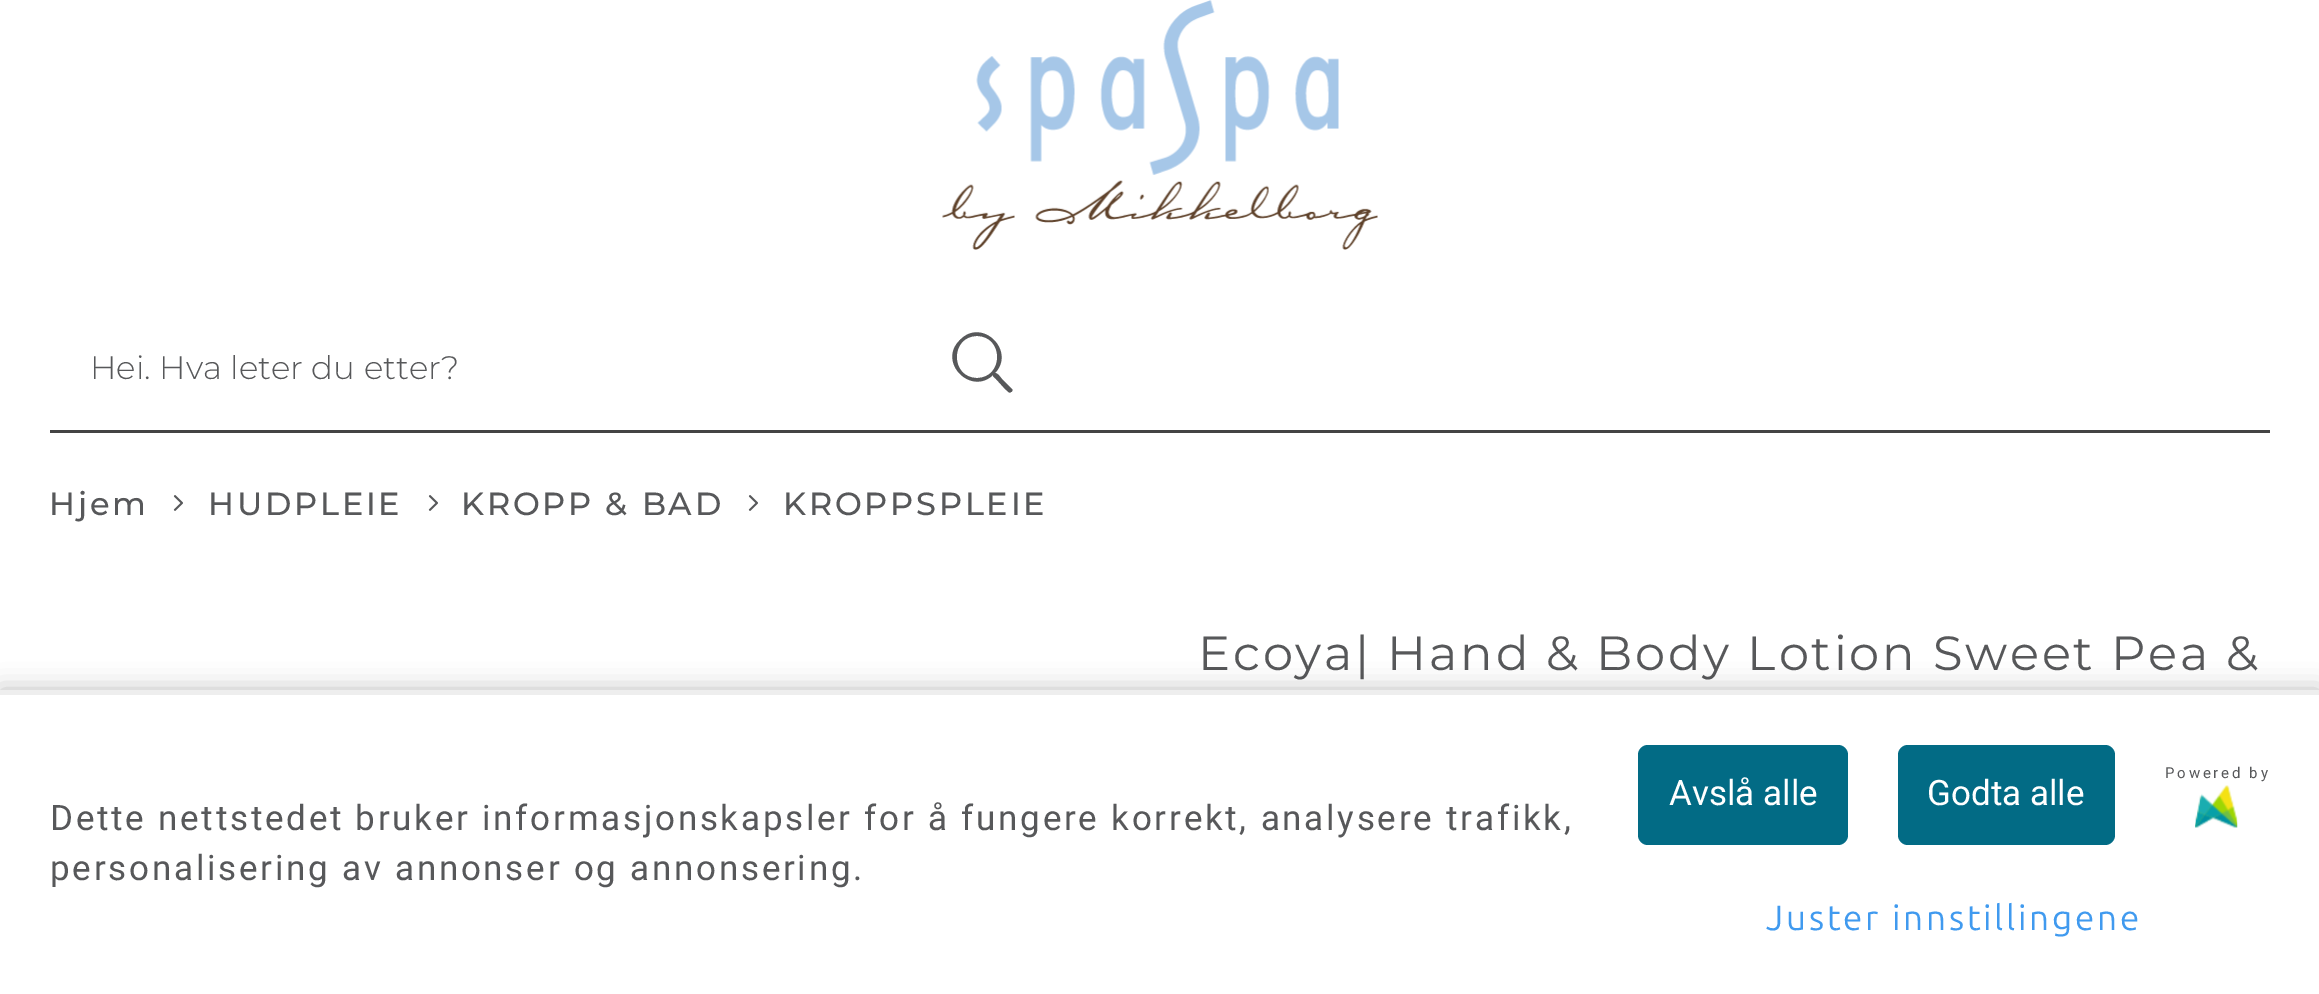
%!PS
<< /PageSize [2319 994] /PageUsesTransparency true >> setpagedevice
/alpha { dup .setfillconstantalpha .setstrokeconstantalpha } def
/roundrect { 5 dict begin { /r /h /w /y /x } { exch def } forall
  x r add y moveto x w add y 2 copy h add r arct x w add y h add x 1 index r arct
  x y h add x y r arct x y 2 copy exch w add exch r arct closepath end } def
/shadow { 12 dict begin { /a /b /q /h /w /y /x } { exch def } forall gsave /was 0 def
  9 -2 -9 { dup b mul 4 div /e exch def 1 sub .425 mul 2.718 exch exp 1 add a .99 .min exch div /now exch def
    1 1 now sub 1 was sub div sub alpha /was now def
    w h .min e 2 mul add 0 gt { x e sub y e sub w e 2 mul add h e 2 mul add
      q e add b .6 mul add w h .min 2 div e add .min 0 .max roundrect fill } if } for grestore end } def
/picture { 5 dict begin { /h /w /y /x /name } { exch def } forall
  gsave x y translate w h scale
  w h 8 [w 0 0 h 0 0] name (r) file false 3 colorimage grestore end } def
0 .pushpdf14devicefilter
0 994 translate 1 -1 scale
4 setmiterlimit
1 setgray
0 0 2319 994 rectfill
(img1.rgb) 942 0 436 250 picture
0.267 setgray
50 430 2220 3 rectfill
/Montserrat-Light [32.5 0 0 -32.5 0 0] selectfont
0.341 0.345 0.353 setrgbcolor
90 379 moveto (Hei. Hva leter du etter?) show
newpath 1012 389 moveto 1002 379 lineto 1000 377 998 373 995 373 curveto 1016 351 982 317 960 340 curveto 937 362 971 396 993 375 curveto 993 377 994 377 996 379 curveto 1006 390 lineto 1007 390 1009 394 1011 392 curveto 1012 392 1013 390 1012 389 curveto closepath 977 378 moveto 950 378 950 336 977 336 curveto 1004 336 1004 378 977 378 curveto closepath fill
/Montserrat-Medium [32 0 0 -32 0 0] selectfont
49 515 moveto 2.75 0 (Hjem) ashow
(img2.rgb) 173 495 10 16 picture
208 515 moveto 2.75 0 (HUDPLEIE) ashow
(img2.rgb) 428 495 10 16 picture
461 515 moveto 2.75 0 (KROPP & BAD) ashow
(img2.rgb) 748 495 10 16 picture
783 515 moveto 2.75 0 (KROPPSPLEIE) ashow
/Montserrat-Regular [48 0 0 -48 0 0] selectfont
1198 670 moveto 2.75 0 (Ecoya| Hand & Body Lotion Sweet Pea &) ashow
0 setgray
0 690 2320 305 0 12.5 0.25 shadow
1 setgray
0 695 2319 299 rectfill
0.933 setgray
0 690 2319 5 rectfill
/Roboto-Regular [35 0 0 -35 0 0] selectfont
0.341 0.345 0.353 setrgbcolor
50 830 moveto 2.75 0 (Dette nettstedet bruker informasjonskapsler for å fungere korrekt, analysere trafikk,) ashow
50 880 moveto 2.75 0 (personalisering av annonser og annonsering.) ashow
/Roboto-Regular [15 0 0 -15 0 0] selectfont
2165 778 moveto 2.75 0 (Powered by) ashow
(img3.rgb) 2195 785 43 43 picture
0.008 0.42 0.522 setrgbcolor
1638 745 210 100 10 roundrect fill
/Roboto-Regular [35 0 0 -35 0 0] selectfont
1 setgray
1669 805 moveto (Avslå alle) show
0.008 0.42 0.522 setrgbcolor
1898 745 217 100 10 roundrect fill
1 setgray
1927 805 moveto (Godta alle) show
/Ubuntu-Regular [35 0 0 -35 0 0] selectfont
0.251 0.604 0.937 setrgbcolor
1766 930 moveto 2.75 0 (Juster innstillingene) ashow
.poppdf14devicefilter showpage
